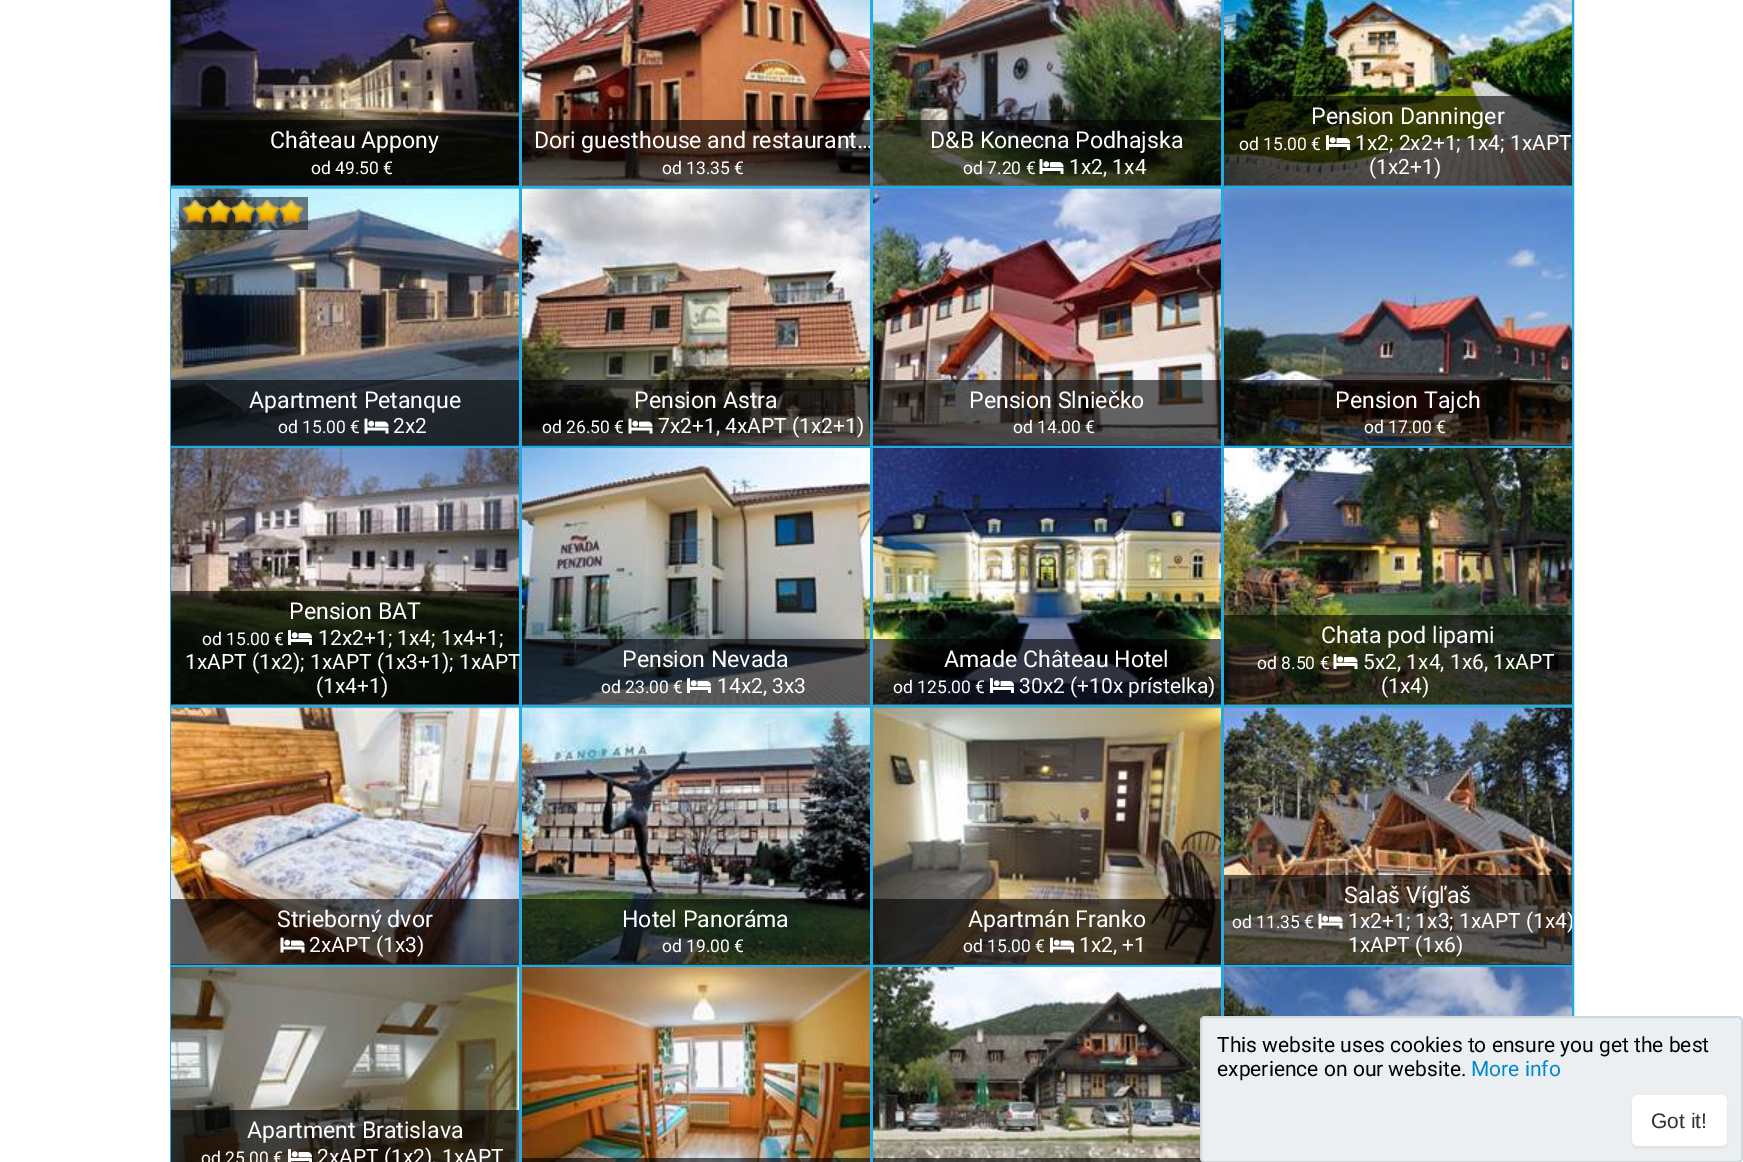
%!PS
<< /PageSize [1743 1162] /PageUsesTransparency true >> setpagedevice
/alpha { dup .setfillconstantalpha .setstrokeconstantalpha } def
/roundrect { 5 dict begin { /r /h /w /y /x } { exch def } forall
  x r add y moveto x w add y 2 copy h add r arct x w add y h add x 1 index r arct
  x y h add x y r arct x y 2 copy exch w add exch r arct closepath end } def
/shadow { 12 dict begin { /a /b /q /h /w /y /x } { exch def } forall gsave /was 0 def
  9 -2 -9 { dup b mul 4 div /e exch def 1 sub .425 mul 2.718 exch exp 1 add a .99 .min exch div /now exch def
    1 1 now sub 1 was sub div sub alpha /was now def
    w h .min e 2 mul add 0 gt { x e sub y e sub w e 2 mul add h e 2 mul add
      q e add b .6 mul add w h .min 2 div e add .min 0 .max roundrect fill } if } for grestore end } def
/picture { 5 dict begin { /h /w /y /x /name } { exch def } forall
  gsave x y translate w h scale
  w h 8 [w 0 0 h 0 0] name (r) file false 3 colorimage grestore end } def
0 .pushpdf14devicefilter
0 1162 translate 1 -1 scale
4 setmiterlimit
1 setgray
0 0 1743 1162 rectfill
0.145 0.667 0.882 setrgbcolor
2 setlinewidth
171 -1 349 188 rectstroke
(img1.rgb) 171 0 348 186 picture
0.6 alpha
0 setgray
171 120 348 66 rectfill
/Roboto-Regular [23.1 0 0 -23.1 0 0] selectfont
1 alpha
1 setgray
270 148 moveto (Château Appony) show
/Roboto-Regular [17.5 0 0 -17.5 0 0] selectfont
311 174 moveto (od 49.50 €) show
0.145 0.667 0.882 setrgbcolor
522 -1 349 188 rectstroke
(img2.rgb) 522 0 348 186 picture
0.6 alpha
0 setgray
522 120 348 66 rectfill
gsave
534 128 336 27 rectclip
/Roboto-Regular [23.1 0 0 -23.1 0 0] selectfont
1 alpha
1 setgray
534 148 moveto (Dori guesthouse and restaurant…) show
grestore
1 alpha
1 setgray
662 174 moveto (od 13.35 €) show
0.145 0.667 0.882 setrgbcolor
873 -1 349 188 rectstroke
(img3.rgb) 873 0 348 186 picture
0.6 alpha
0 setgray
873 120 348 66 rectfill
/Roboto-Regular [23.1 0 0 -23.1 0 0] selectfont
1 alpha
1 setgray
930 148 moveto (D&B Konecna Podhajska) show
/Roboto-Regular [17.5 0 0 -17.5 0 0] selectfont
963 174 moveto (od 7.20 €) show
(img4.rgb) 1039 159 25 15 picture
/Roboto-Regular [21 0 0 -21 0 0] selectfont
1069 174 moveto (1x2, 1x4) show
0.145 0.667 0.882 setrgbcolor
1224 -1 349 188 rectstroke
(img5.rgb) 1224 0 348 186 picture
0.6 alpha
0 setgray
1224 96 348 90 rectfill
/Roboto-Regular [23.1 0 0 -23.1 0 0] selectfont
1 alpha
1 setgray
1311 124 moveto (Pension Danninger) show
/Roboto-Regular [17.5 0 0 -17.5 0 0] selectfont
1239 150 moveto (od 15.00 €) show
(img6.rgb) 1326 135 24 15 picture
/Roboto-Regular [21 0 0 -21 0 0] selectfont
1355 150 moveto (1x2; 2x2+1; 1x4; 1xAPT) show
1369 174 moveto (\(1x2+1\)) show
0.145 0.667 0.882 setrgbcolor
171 189 349 257 rectstroke
(img7.rgb) 171 188 348 257 picture
0.5 alpha
0 setgray
179 197 129 33 rectfill
1 alpha
(img8.rgb) 183 200 120 23 picture
(img9.rgb) 183 199 120 24 picture
0.6 alpha
171 380 348 66 rectfill
/Roboto-Regular [23.1 0 0 -23.1 0 0] selectfont
1 alpha
1 setgray
249 408 moveto (Apartment Petanque) show
/Roboto-Regular [17.5 0 0 -17.5 0 0] selectfont
278 433 moveto (od 15.00 €) show
(img10.rgb) 364 418 25 16 picture
/Roboto-Regular [21 0 0 -21 0 0] selectfont
393 433 moveto (2x2) show
0.145 0.667 0.882 setrgbcolor
522 189 349 257 rectstroke
(img11.rgb) 522 188 348 257 picture
0.6 alpha
0 setgray
522 380 348 66 rectfill
/Roboto-Regular [23.1 0 0 -23.1 0 0] selectfont
1 alpha
1 setgray
634 408 moveto (Pension Astra) show
/Roboto-Regular [17.5 0 0 -17.5 0 0] selectfont
542 433 moveto (od 26.50 €) show
(img12.rgb) 628 418 25 16 picture
/Roboto-Regular [21 0 0 -21 0 0] selectfont
658 433 moveto (7x2+1, 4xAPT \(1x2+1\)) show
0.145 0.667 0.882 setrgbcolor
873 189 349 257 rectstroke
(img13.rgb) 873 188 348 257 picture
0.6 alpha
0 setgray
873 380 348 66 rectfill
/Roboto-Regular [23.1 0 0 -23.1 0 0] selectfont
1 alpha
1 setgray
969 408 moveto (Pension Slniečko) show
/Roboto-Regular [17.5 0 0 -17.5 0 0] selectfont
1013 433 moveto (od 14.00 €) show
0.145 0.667 0.882 setrgbcolor
1224 189 349 257 rectstroke
(img14.rgb) 1224 188 348 257 picture
0.6 alpha
0 setgray
1224 380 348 66 rectfill
/Roboto-Regular [23.1 0 0 -23.1 0 0] selectfont
1 alpha
1 setgray
1335 408 moveto (Pension Tajch) show
/Roboto-Regular [17.5 0 0 -17.5 0 0] selectfont
1364 433 moveto (od 17.00 €) show
0.145 0.667 0.882 setrgbcolor
171 448 349 258 rectstroke
(img15.rgb) 171 448 348 257 picture
0.6 alpha
0 setgray
171 591 348 114 rectfill
/Roboto-Regular [23.1 0 0 -23.1 0 0] selectfont
1 alpha
1 setgray
289 619 moveto (Pension BAT) show
/Roboto-Regular [17.5 0 0 -17.5 0 0] selectfont
202 645 moveto (od 15.00 €) show
(img16.rgb) 288 630 24 15 picture
/Roboto-Regular [21 0 0 -21 0 0] selectfont
318 645 moveto (12x2+1; 1x4; 1x4+1;) show
185 669 moveto (1xAPT \(1x2\); 1xAPT \(1x3+1\); 1xAPT) show
316 693 moveto (\(1x4+1\)) show
0.145 0.667 0.882 setrgbcolor
522 448 349 258 rectstroke
(img17.rgb) 522 448 348 257 picture
0.6 alpha
0 setgray
522 639 348 66 rectfill
/Roboto-Regular [23.1 0 0 -23.1 0 0] selectfont
1 alpha
1 setgray
622 667 moveto (Pension Nevada) show
/Roboto-Regular [17.5 0 0 -17.5 0 0] selectfont
601 693 moveto (od 23.00 €) show
(img18.rgb) 687 678 24 15 picture
/Roboto-Regular [21 0 0 -21 0 0] selectfont
717 693 moveto (14x2, 3x3) show
0.145 0.667 0.882 setrgbcolor
873 448 349 258 rectstroke
(img19.rgb) 873 448 348 257 picture
0.6 alpha
0 setgray
873 639 348 66 rectfill
/Roboto-Regular [23.1 0 0 -23.1 0 0] selectfont
1 alpha
1 setgray
944 667 moveto (Amade Château Hotel) show
/Roboto-Regular [17.5 0 0 -17.5 0 0] selectfont
893 693 moveto (od 125.00 €) show
(img20.rgb) 990 678 24 15 picture
/Roboto-Regular [21 0 0 -21 0 0] selectfont
1019 693 moveto (30x2 \(+10x prístelka\)) show
0.145 0.667 0.882 setrgbcolor
1224 448 349 258 rectstroke
(img21.rgb) 1224 448 348 257 picture
0.6 alpha
0 setgray
1224 615 348 90 rectfill
/Roboto-Regular [23.1 0 0 -23.1 0 0] selectfont
1 alpha
1 setgray
1321 643 moveto (Chata pod lipami) show
/Roboto-Regular [17.5 0 0 -17.5 0 0] selectfont
1257 669 moveto (od 8.50 €) show
(img22.rgb) 1333 654 25 15 picture
/Roboto-Regular [21 0 0 -21 0 0] selectfont
1363 669 moveto (5x2, 1x4, 1x6, 1xAPT) show
1381 693 moveto (\(1x4\)) show
0.145 0.667 0.882 setrgbcolor
171 708 349 257 rectstroke
(img23.rgb) 171 707 348 257 picture
0.6 alpha
0 setgray
171 899 348 66 rectfill
/Roboto-Regular [23.1 0 0 -23.1 0 0] selectfont
1 alpha
1 setgray
277 927 moveto (Strieborný dvor) show
(img24.rgb) 280 937 25 16 picture
/Roboto-Regular [21 0 0 -21 0 0] selectfont
309 952 moveto (2xAPT \(1x3\)) show
0.145 0.667 0.882 setrgbcolor
522 708 349 257 rectstroke
(img25.rgb) 522 707 348 257 picture
0.6 alpha
0 setgray
522 899 348 66 rectfill
/Roboto-Regular [23.1 0 0 -23.1 0 0] selectfont
1 alpha
1 setgray
622 927 moveto (Hotel Panoráma) show
/Roboto-Regular [17.5 0 0 -17.5 0 0] selectfont
662 952 moveto (od 19.00 €) show
0.145 0.667 0.882 setrgbcolor
873 708 349 257 rectstroke
(img26.rgb) 873 707 348 257 picture
0.6 alpha
0 setgray
873 899 348 66 rectfill
/Roboto-Regular [23.1 0 0 -23.1 0 0] selectfont
1 alpha
1 setgray
968 927 moveto (Apartmán Franko) show
/Roboto-Regular [17.5 0 0 -17.5 0 0] selectfont
963 952 moveto (od 15.00 €) show
(img27.rgb) 1050 937 24 16 picture
/Roboto-Regular [21 0 0 -21 0 0] selectfont
1079 952 moveto (1x2, +1) show
0.145 0.667 0.882 setrgbcolor
1224 708 349 257 rectstroke
(img28.rgb) 1224 707 348 257 picture
0.6 alpha
0 setgray
1224 875 348 90 rectfill
/Roboto-Regular [23.1 0 0 -23.1 0 0] selectfont
1 alpha
1 setgray
1344 903 moveto (Salaš Vígľaš) show
/Roboto-Regular [17.5 0 0 -17.5 0 0] selectfont
1232 928 moveto (od 11.35 €) show
(img29.rgb) 1318 913 25 16 picture
gsave
1224 875 348 90 rectclip
/Roboto-Regular [21 0 0 -21 0 0] selectfont
1348 928 moveto (1x2+1; 1x3; 1xAPT \(1x4\)) show
grestore
/Roboto-Regular [21 0 0 -21 0 0] selectfont
1348 952 moveto (1xAPT \(1x6\)) show
0.145 0.667 0.882 setrgbcolor
171 967 349 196 rectstroke
(img30.rgb) 171 967 348 195 picture
0.6 alpha
0 setgray
171 1110 348 52 rectfill
/Roboto-Regular [23.1 0 0 -23.1 0 0] selectfont
1 alpha
1 setgray
247 1138 moveto (Apartment Bratislava) show
/Roboto-Regular [17.5 0 0 -17.5 0 0] selectfont
201 1164 moveto (od 25.00 €) show
(img31.rgb) 288 1149 24 13 picture
/Roboto-Regular [21 0 0 -21 0 0] selectfont
317 1164 moveto (2xAPT \(1x2\), 1xAPT) show
0.145 0.667 0.882 setrgbcolor
522 967 349 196 rectstroke
(img32.rgb) 522 967 348 195 picture
0.6 alpha
0 setgray
522 1158 348 4 rectfill
1 alpha
0.145 0.667 0.882 setrgbcolor
873 967 349 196 rectstroke
(img33.rgb) 873 967 348 195 picture
0.6 alpha
0 setgray
873 1158 329 4 rectfill
1 alpha
0.145 0.667 0.882 setrgbcolor
1224 967 349 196 rectstroke
(img34.rgb) 1224 967 348 49 picture
0.925 0.937 0.945 setrgbcolor
1201 1017 541 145 4 roundrect gsave fill grestore
0.812 0.847 0.863 setrgbcolor
stroke
0 setgray
1217 1052 moveto (This website uses cookies to ensure you get the best) show
1217 1076 moveto (experience on our website.) show
0 0.533 0.8 setrgbcolor
1471 1076 moveto (More info) show
0 setgray
1632 1097 95 51 6 1.5 0.05 shadow
1 setgray
1632 1095 95 51 6 roundrect fill
/LiberationSans-Regular [21 0 0 -21 0 0] selectfont
0.2 setgray
1651 1128 moveto (Got it!) show
.poppdf14devicefilter showpage
